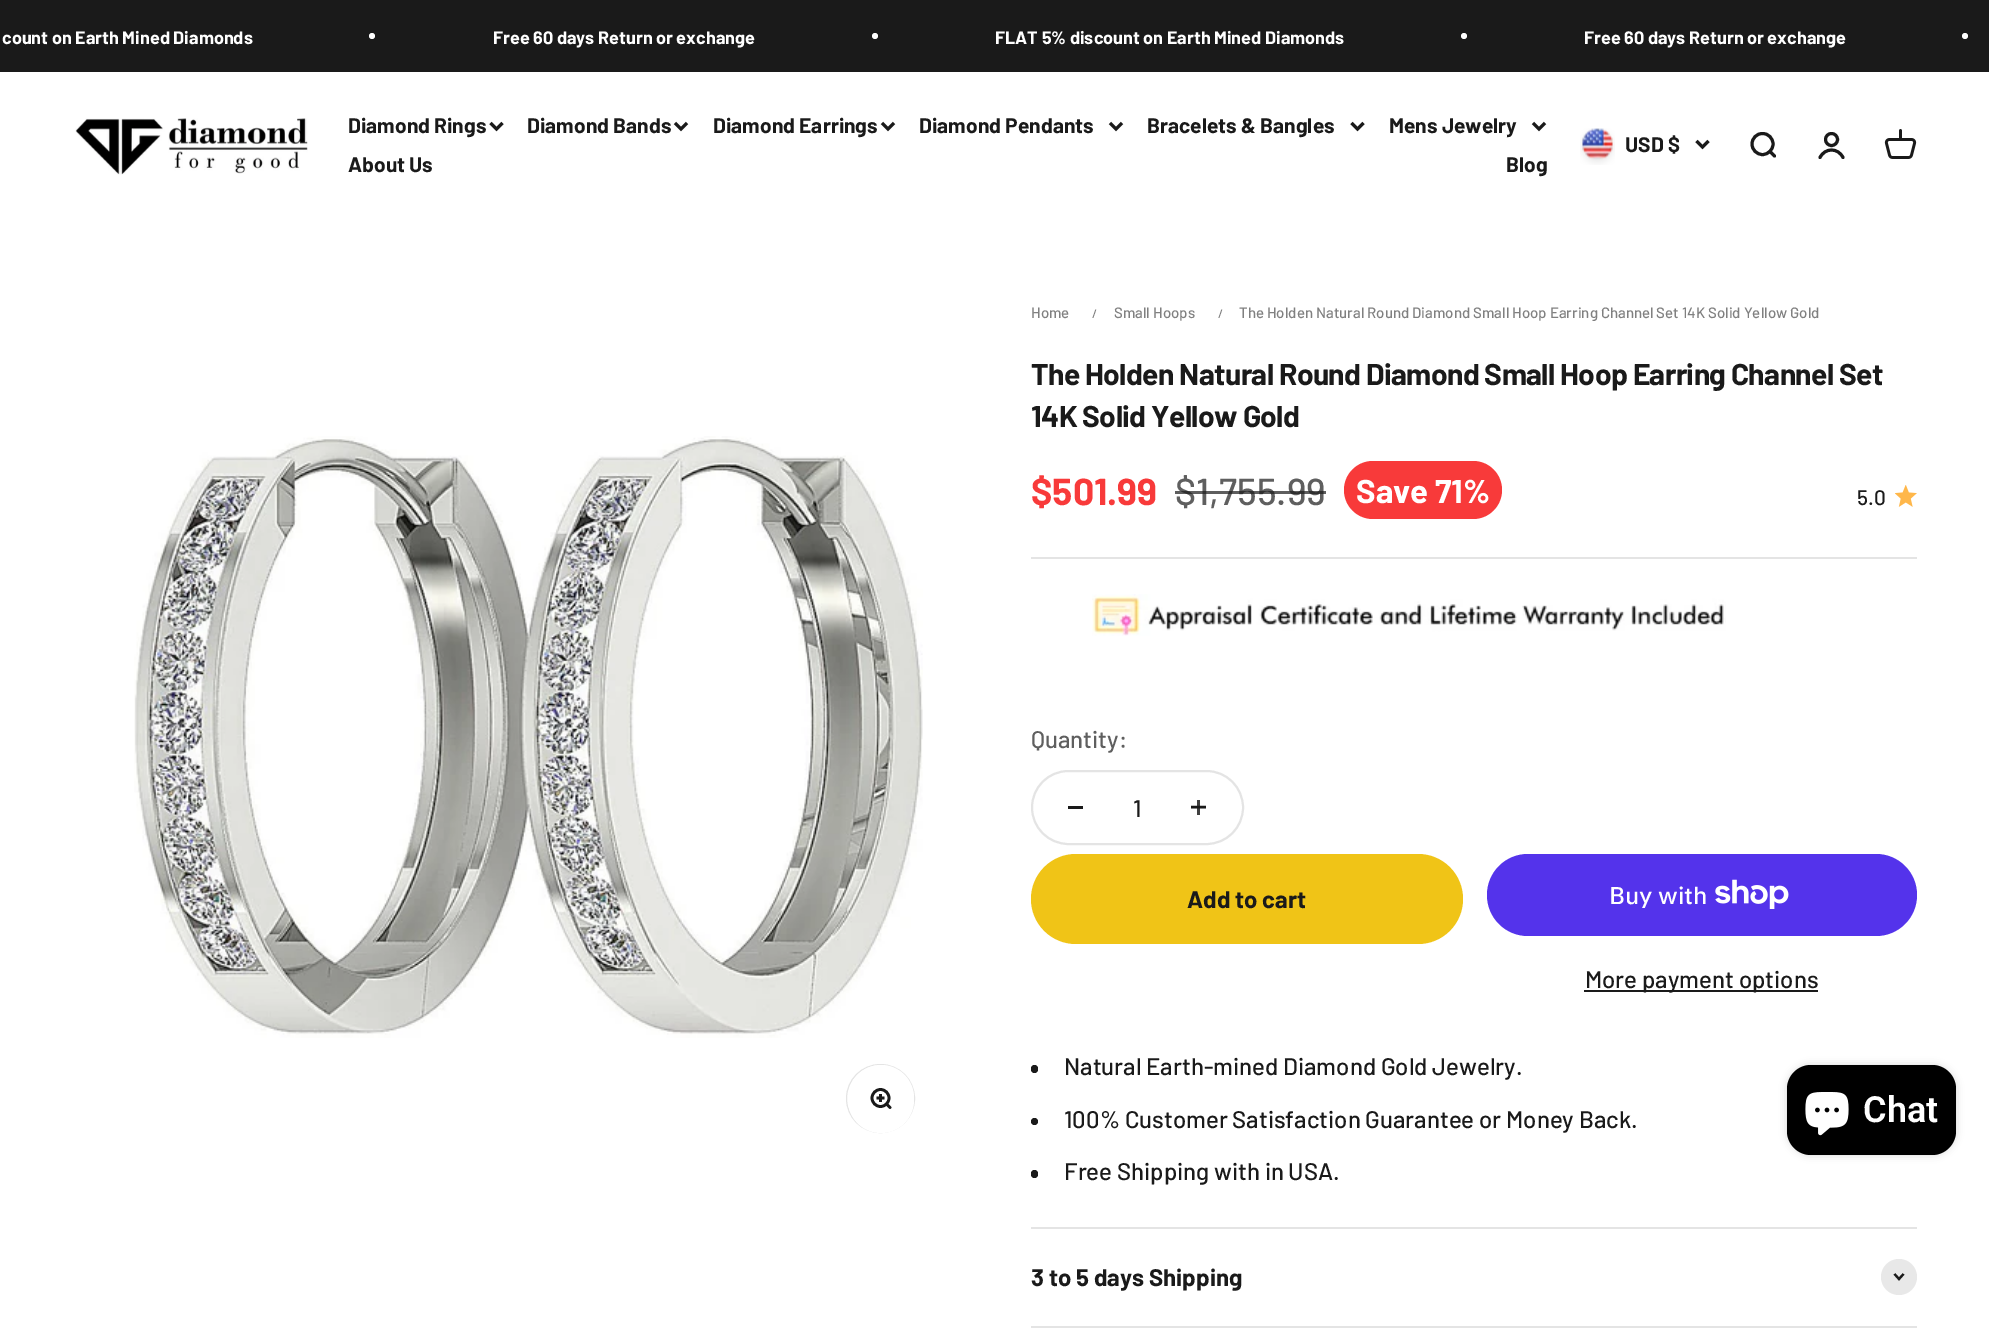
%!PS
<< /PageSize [1989 1342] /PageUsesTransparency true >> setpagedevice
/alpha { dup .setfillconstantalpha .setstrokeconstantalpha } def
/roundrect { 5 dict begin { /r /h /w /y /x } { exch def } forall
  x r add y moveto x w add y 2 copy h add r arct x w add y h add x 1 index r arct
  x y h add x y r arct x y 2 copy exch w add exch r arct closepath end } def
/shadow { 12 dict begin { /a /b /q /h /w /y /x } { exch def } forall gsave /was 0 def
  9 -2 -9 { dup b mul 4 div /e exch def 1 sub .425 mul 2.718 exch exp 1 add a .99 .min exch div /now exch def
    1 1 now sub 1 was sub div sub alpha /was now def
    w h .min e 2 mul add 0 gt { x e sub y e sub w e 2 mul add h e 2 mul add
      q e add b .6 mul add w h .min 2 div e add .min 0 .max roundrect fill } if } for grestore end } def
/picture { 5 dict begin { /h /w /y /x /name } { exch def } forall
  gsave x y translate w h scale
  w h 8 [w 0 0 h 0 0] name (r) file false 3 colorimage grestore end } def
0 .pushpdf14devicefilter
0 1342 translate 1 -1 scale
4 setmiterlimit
1 setgray
0 0 1989 1342 rectfill
0.102 setgray
0 0 1989 72 rectfill
/Barlow-Bold [18 0 0 -18 0 0] selectfont
1 setgray
2 44 moveto (count on Earth Mined Diamonds) show
newpath 372 36 3 0 360 arc closepath fill
493 44 moveto (Free 60 days Return or exchange) show
newpath 875 36 3 0 360 arc closepath fill
995 44 moveto (FLAT 5% discount on Earth Mined Diamonds) show
newpath 1464 36 3 0 360 arc closepath fill
1584 44 moveto (Free 60 days Return or exchange) show
newpath 1965 36 3 0 360 arc closepath fill
(img1.rgb) 75 118 233 57 picture
/Barlow-Bold [21 0 0 -21 0 0] selectfont
0.102 setgray
348 133 moveto (Diamond Rings) show
3 setlinewidth
newpath 490.5 123 moveto 496.5 129 lineto 502.5 123 lineto stroke
527 133 moveto (Diamond Bands) show
newpath 675 123 moveto 681 129 lineto 687 123 lineto stroke
713 133 moveto (Diamond Earrings) show
newpath 882 123 moveto 888 129 lineto 894 123 lineto stroke
919 133 moveto (Diamond Pendants) show
newpath 1110 123 moveto 1116 129 lineto 1122 123 lineto stroke
1147 133 moveto (Bracelets & Bangles) show
newpath 1351.5 123 moveto 1357.5 129 lineto 1363.5 123 lineto stroke
1389 133 moveto (Mens Jewelry) show
newpath 1533 123 moveto 1539 129 lineto 1545 123 lineto stroke
348 172 moveto (About Us) show
1506 172 moveto (Blog) show
(img2.rgb) 1580 128 35 37 picture
1625 152 moveto (USD $) show
newpath 1696.5 141 moveto 1702.5 147 lineto 1708.5 141 lineto stroke
newpath 1762.5 144 10.5 0 360 arc closepath stroke
1 setlinecap
1 setlinejoin
newpath 1770 151.5 moveto 1774.5 156 lineto stroke
0 setlinecap
0 setlinejoin
newpath 1831.5 139.5 6 0 360 arc closepath stroke
1 setlinecap
newpath 1820 157.5 moveto 1825 147.5 1838 147.5 1843 157.5 curveto stroke
(img3.rgb) 1884 129 33 30 picture
(img4.rgb) 134 436 789 602 picture
0.894 setgray
1 setlinewidth
0 setlinecap
newpath 880.5 1098.5 34 0 360 arc closepath stroke
1 setgray
848 1065 66 68 33 roundrect fill
0.102 setgray
2.7 setlinewidth
newpath 880.5 1098 8.5 0 360 arc closepath stroke
1 setlinecap
1 setlinejoin
newpath 886.5 1104 moveto 890 1107.5 lineto stroke
0 setlinecap
0 setlinejoin
newpath 880.5 1094 moveto 880.5 1102 lineto 876.5 1098 moveto 884.5 1098 lineto stroke
/Barlow-Medium [15 0 0 -15 0 0] selectfont
0.502 setgray
1031 318 moveto (Home) show
/Barlow-Medium [12 0 0 -12 0 0] selectfont
1092 318 moveto (/) show
/Barlow-Medium [15 0 0 -15 0 0] selectfont
1114 318 moveto (Small Hoops) show
/Barlow-Medium [12 0 0 -12 0 0] selectfont
1218 318 moveto (/) show
/Barlow-Medium [15 0 0 -15 0 0] selectfont
1239 318 moveto (The Holden Natural Round Diamond Small Hoop Earring Channel Set 14K Solid Yellow Gold) show
/Barlow-Bold [30 0 0 -30 0 0] selectfont
0.102 setgray
1031 385 moveto -0.6 0 (The Holden Natural Round Diamond Small Hoop Earring Channel Set) ashow
1031 427 moveto -0.6 0 (14K Solid Yellow Gold) ashow
/Barlow-Bold [37.5 0 0 -37.5 0 0] selectfont
0.973 0.227 0.227 setrgbcolor
1031 505 moveto ($501.99) show
/Barlow-Medium [37.5 0 0 -37.5 0 0] selectfont
0.373 setgray
1175 505 moveto ($1,755.99) show
0.7 alpha
0.102 setgray
1175 491 151 3 rectfill
1 alpha
0.973 0.227 0.227 setrgbcolor
1344 461 158 58 29 roundrect fill
/Barlow-Bold [33 0 0 -33 0 0] selectfont
1 setgray
1356 503 moveto (Save 71%) show
/Barlow-Medium [21 0 0 -21 0 0] selectfont
0.102 setgray
1857 505 moveto (5.0) show
(img5.rgb) 1895 485 22 22 picture
0.894 setgray
1031 557 886 2 rectfill
(img6.rgb) 1092 594 634 42 picture
/Barlow-Medium [24 0 0 -24 0 0] selectfont
0.373 setgray
1031 748 moveto (Quantity:) show
0.894 setgray
2 setlinewidth
1032 771 211 73 36.5 roundrect stroke
0.102 setgray
1068 806 15 3 rectfill
1133 817 moveto (1) show
0.251 setgray
1197 800 3 15 rectfill
0.102 setgray
2.5 setlinewidth
newpath 1191 807 moveto 1206 807 lineto stroke
0.941 0.769 0.09 setrgbcolor
1031 854 432 90 45 roundrect fill
/Barlow-Bold [24 0 0 -24 0 0] selectfont
0.102 setgray
1187 908 moveto (Add to cart) show
0.329 0.2 0.922 setrgbcolor
1487 854 430 82 41 roundrect fill
/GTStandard-Medium [24 0 0 -24 0 0] selectfont
1 setgray
1609 904 moveto (Buy with) show
(img7.rgb) 1715 879 74 30 picture
0.102 setgray
1584 990 234 2 rectfill
/Barlow-Medium [24 0 0 -24 0 0] selectfont
1585 988 moveto (More payment options) show
1031 1065 7 8 3.5 roundrect fill
1064 1075 moveto (Natural Earth-mined Diamond Gold Jewelry.) show
newpath 1034.5 1121.5 3.5 0 360 arc closepath fill
1064 1128 moveto (100% Customer Satisfaction Guarantee or Money Back.) show
1031 1170 7 8 3.5 roundrect fill
1064 1180 moveto (Free Shipping with in USA.) show
0.894 setgray
1031 1227 886 2 rectfill
/Barlow-Bold [24 0 0 -24 0 0] selectfont
0.102 setgray
1031 1286 moveto (3 to 5 days Shipping) show
0.91 setgray
newpath 1899 1277 18 0 360 arc closepath fill
0.102 setgray
2.2 setlinewidth
newpath 1894.5 1274 moveto 1899 1279 lineto 1903.5 1274 lineto stroke
0.894 setgray
1031 1326 886 2 rectfill
0 setgray
1787 1065 169 90 24 4 0.15 shadow
1787 1065 169 90 24 roundrect fill
(img8.rgb) 1805 1092 44 44 picture
/Roboto-SemiBold [36 0 0 -36 0 0] selectfont
1 setgray
1863 1122 moveto (Chat) show
.poppdf14devicefilter showpage
